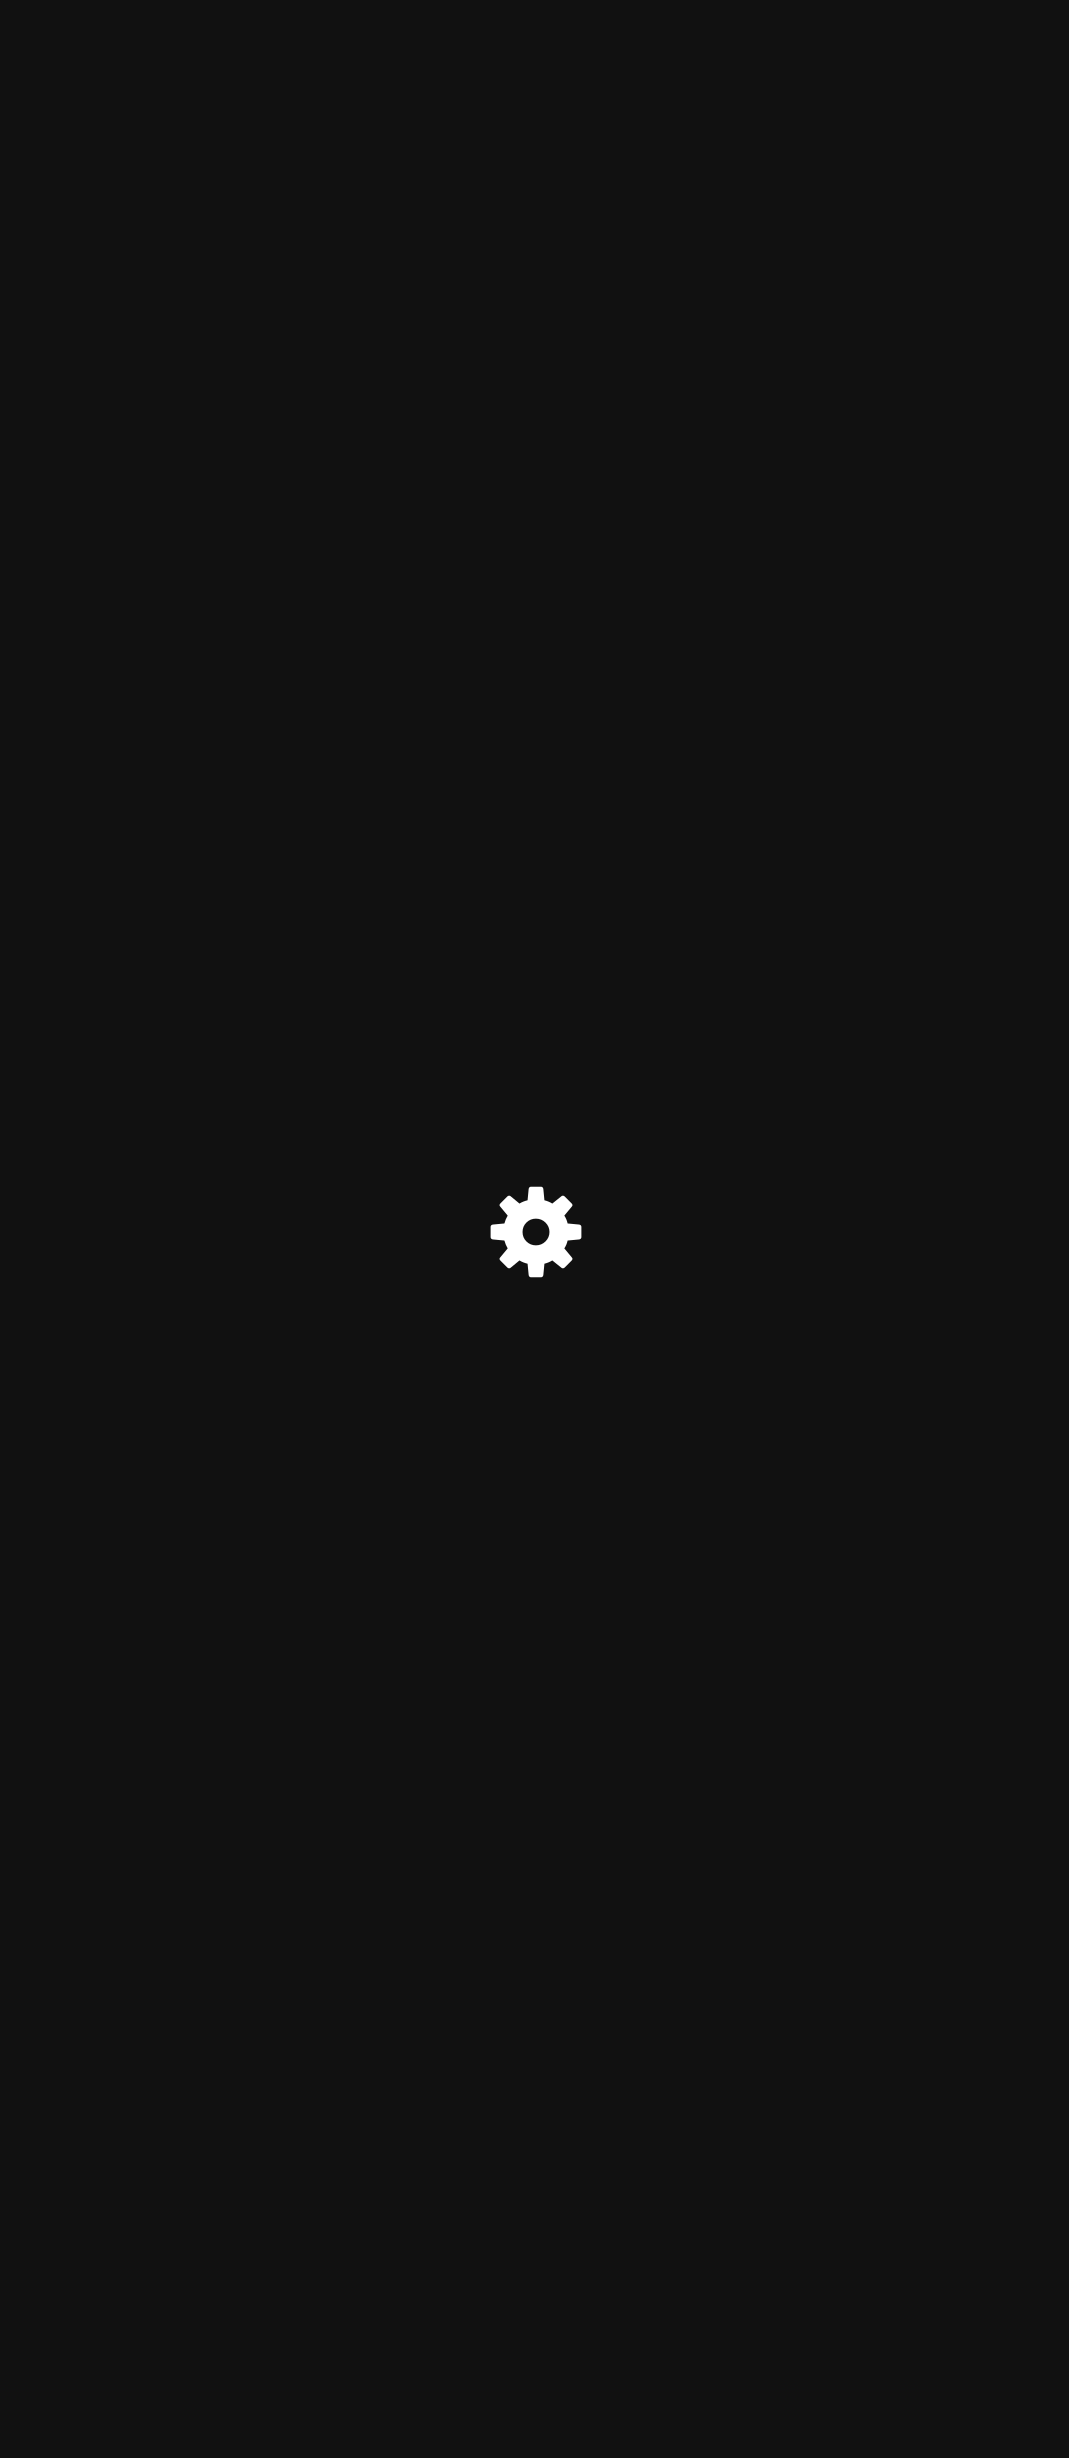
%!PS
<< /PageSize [1069 2458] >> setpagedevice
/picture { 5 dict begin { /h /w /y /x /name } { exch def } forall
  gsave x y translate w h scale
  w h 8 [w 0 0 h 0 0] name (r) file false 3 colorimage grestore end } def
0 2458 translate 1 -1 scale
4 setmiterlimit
0.067 setgray
0 0 1069 2458 rectfill
(img1.rgb) 490 1186 92 92 picture
showpage
